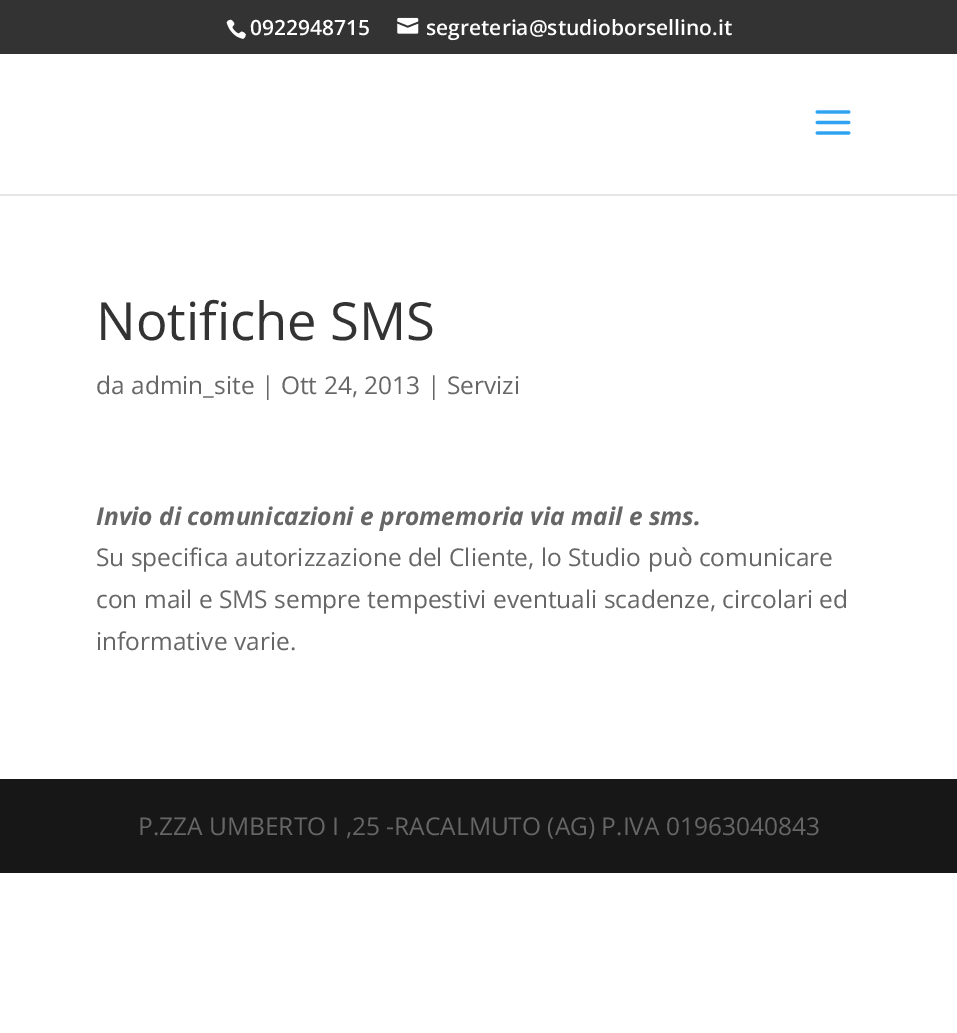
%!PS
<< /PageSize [957 1033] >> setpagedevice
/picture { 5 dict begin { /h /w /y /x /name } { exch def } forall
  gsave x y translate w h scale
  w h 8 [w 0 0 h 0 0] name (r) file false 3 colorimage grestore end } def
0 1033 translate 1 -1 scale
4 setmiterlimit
1 setgray
0 0 957 1033 rectfill
0.2 setgray
0 0 957 54 rectfill
(img1.rgb) 226 19 20 20 picture
/OpenSans-SemiBold [21 0 0 -21 0 0] selectfont
1 setgray
250 35 moveto (0922948715) show
(img2.rgb) 397 17 22 17 picture
426 35 moveto (segreteria@studioborsellino.it) show
0.902 setgray
0 194 957 2 rectfill
(img3.rgb) 815 110 36 25 picture
/OpenSans-Regular [52.5 0 0 -52.5 0 0] selectfont
0.2 setgray
96 340 moveto (Notifiche SMS) show
/OpenSans-Regular [24.5 0 0 -24.5 0 0] selectfont
0.4 setgray
96 394 moveto (da admin_site | Ott 24, 2013 | Servizi) show
/OpenSans-BoldItalic [24.5 0 0 -24.5 0 0] selectfont
96 525 moveto (Invio di comunicazioni e promemoria via mail e sms.) show
/OpenSans-Regular [24.5 0 0 -24.5 0 0] selectfont
96 566 moveto (Su specifica autorizzazione del Cliente, lo Studio può comunicare) show
96 608 moveto (con mail e SMS sempre tempestivi eventuali scadenze, circolari ed) show
96 650 moveto (informative varie.) show
0.09 setgray
0 779 957 94 rectfill
0.4 setgray
138 835 moveto (P.ZZA UMBERTO I ,25 -RACALMUTO \(AG\) P.IVA 01963040843) show
showpage
